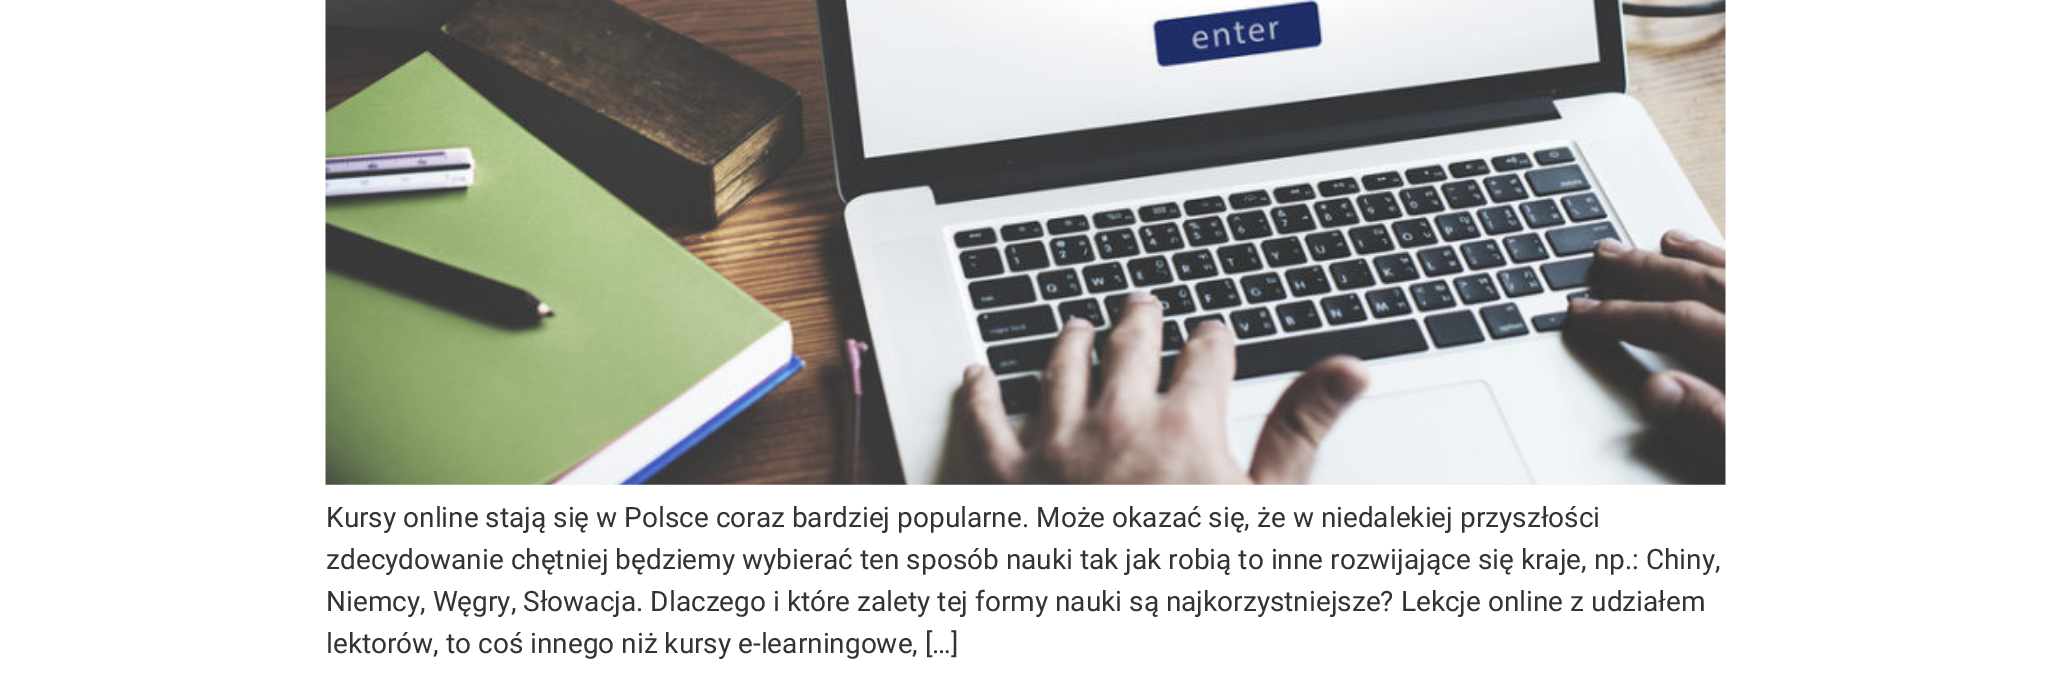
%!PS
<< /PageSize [2051 685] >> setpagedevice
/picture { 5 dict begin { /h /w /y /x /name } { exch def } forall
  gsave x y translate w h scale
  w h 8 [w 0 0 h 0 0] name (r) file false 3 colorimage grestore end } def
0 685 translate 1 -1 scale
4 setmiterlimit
1 setgray
0 0 2051 685 rectfill
(img1.rgb) 325 0 1401 485 picture
/Roboto-Regular [28 0 0 -28 0 0] selectfont
0.2 setgray
326 527 moveto (Kursy online stają się w Polsce coraz bardziej popularne. Może okazać się, że w niedalekiej przyszłości) show
326 569 moveto (zdecydowanie chętniej będziemy wybierać ten sposób nauki tak jak robią to inne rozwijające się kraje, np.: Chiny,) show
326 611 moveto (Niemcy, Węgry, Słowacja. Dlaczego i które zalety tej formy nauki są najkorzystniejsze? Lekcje online z udziałem) show
326 653 moveto (lektorów, to coś innego niż kursy e-learningowe, […]) show
showpage
